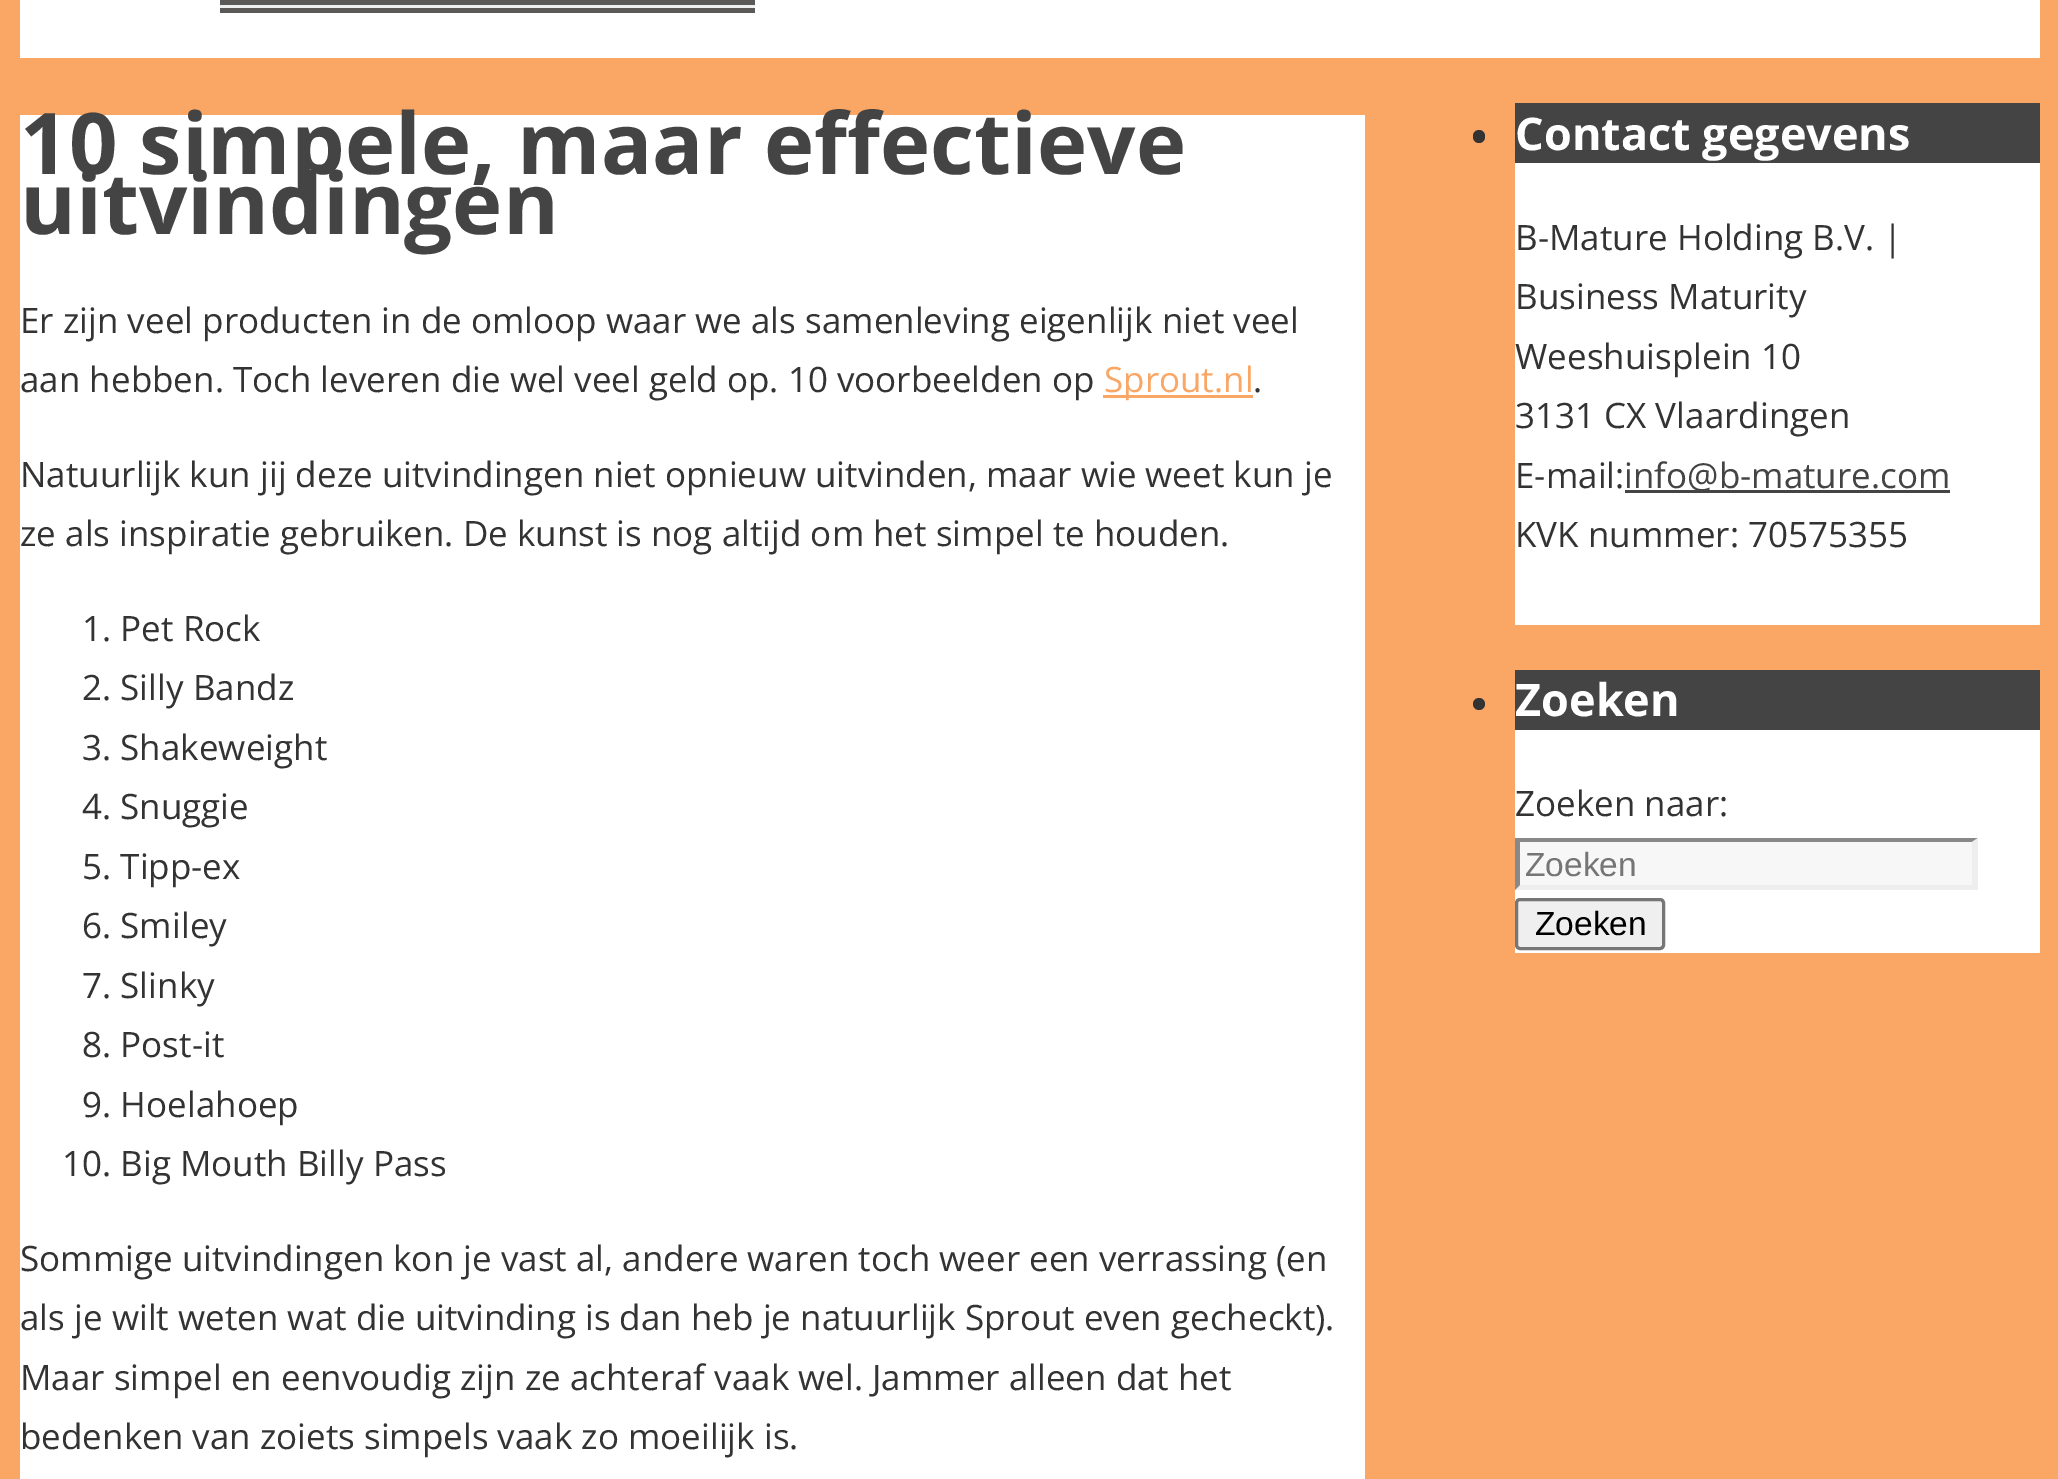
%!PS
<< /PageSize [2058 1479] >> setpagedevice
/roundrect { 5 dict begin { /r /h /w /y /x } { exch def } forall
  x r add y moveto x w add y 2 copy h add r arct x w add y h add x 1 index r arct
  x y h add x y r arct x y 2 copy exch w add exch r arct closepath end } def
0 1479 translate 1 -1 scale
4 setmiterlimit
0.98 0.651 0.396 setrgbcolor
0 0 2058 1479 rectfill
1 setgray
20 0 2020 58 rectfill
0.353 0.349 0.341 setrgbcolor
220 0 535 13 rectfill
0.933 setgray
220 5 535 3 rectfill
1 setgray
20 115 1345 1364 rectfill
/OpenSans-Bold [85 0 0 -85 0 0] selectfont
0.267 setgray
20 174 moveto (10 simpele, maar effectieve) show
20 234 moveto (uitvindingen) show
/OpenSans-Regular [35 0 0 -35 0 0] selectfont
0.2 setgray
20 333 moveto (Er zijn veel producten in de omloop waar we als samenleving eigenlijk niet veel) show
20 392 moveto (aan hebben. Toch leveren die wel veel geld op. 10 voorbeelden op) show
0.98 0.651 0.396 setrgbcolor
1103 395 150 3 rectfill
1104 392 moveto (Sprout.nl) show
0.2 setgray
1253 392 moveto (.) show
20 487 moveto (Natuurlijk kun jij deze uitvindingen niet opnieuw uitvinden, maar wie weet kun je) show
20 546 moveto (ze als inspiratie gebruiken. De kunst is nog altijd om het simpel te houden.) show
82 641 moveto (1. Pet Rock) show
82 700 moveto (2. Silly Bandz) show
82 760 moveto (3. Shakeweight) show
82 819 moveto (4. Snuggie) show
82 879 moveto (5. Tipp-ex) show
82 938 moveto (6. Smiley) show
82 998 moveto (7. Slinky) show
82 1057 moveto (8. Post-it) show
82 1117 moveto (9. Hoelahoep) show
62 1176 moveto (10. Big Mouth Billy Pass) show
20 1271 moveto (Sommige uitvindingen kon je vast al, andere waren toch weer een verrassing \(en) show
20 1330 moveto (als je wilt weten wat die uitvinding is dan heb je natuurlijk Sprout even gecheckt\).) show
20 1390 moveto (Maar simpel en eenvoudig zijn ze achteraf vaak wel. Jammer alleen dat het) show
20 1449 moveto (bedenken van zoiets simpels vaak zo moeilijk is.) show
1 setgray
1515 163 525 462 rectfill
0.2 setgray
1473 130 12 13 6 roundrect fill
0.267 setgray
1515 103 525 60 rectfill
/OpenSans-Bold [45 0 0 -45 0 0] selectfont
1 setgray
1515 150 moveto (Contact gegevens) show
/OpenSans-Regular [35 0 0 -35 0 0] selectfont
0.2 setgray
1515 250 moveto (B-Mature Holding B.V. |) show
1515 309 moveto (Business Maturity) show
1515 369 moveto (Weeshuisplein 10) show
1515 428 moveto (3131 CX Vlaardingen) show
1515 488 moveto (E-mail:) show
0.267 setgray
1625 490 325 3 rectfill
1624 488 moveto (info@b-mature.com) show
0.2 setgray
1515 547 moveto (KVK nummer: 70575355) show
1 setgray
1515 730 525 223 rectfill
0.2 setgray
newpath 1479 704 6 0 360 arc closepath fill
0.267 setgray
1515 670 525 60 rectfill
/OpenSans-Bold [45 0 0 -45 0 0] selectfont
1 setgray
1515 716 moveto (Zoeken) show
/OpenSans-Regular [35 0 0 -35 0 0] selectfont
0.2 setgray
1515 816 moveto (Zoeken naar:) show
0.969 setgray
1515 838 463 52 rectfill
0.533 setgray
newpath 1515 838 moveto 1978 838 lineto 1972 842 lineto 1520 842 lineto closepath fill
0.933 setgray
newpath 1978 838 moveto 1978 890 lineto 1972 885 lineto 1972 842 lineto closepath fill
newpath 1978 890 moveto 1515 890 lineto 1520 885 lineto 1972 885 lineto closepath fill
0.533 setgray
newpath 1515 890 moveto 1515 838 lineto 1520 842 lineto 1520 885 lineto closepath fill
/LiberationSans-Regular [33.5 0 0 -33.5 0 0] selectfont
0.459 setgray
1525 876 moveto (Zoeken) show
0.937 setgray
1516.5 899.5 147 49 3.5 roundrect gsave fill grestore
0.463 setgray
3 setlinewidth
stroke
0 setgray
1535 935 moveto (Zoeken) show
showpage
